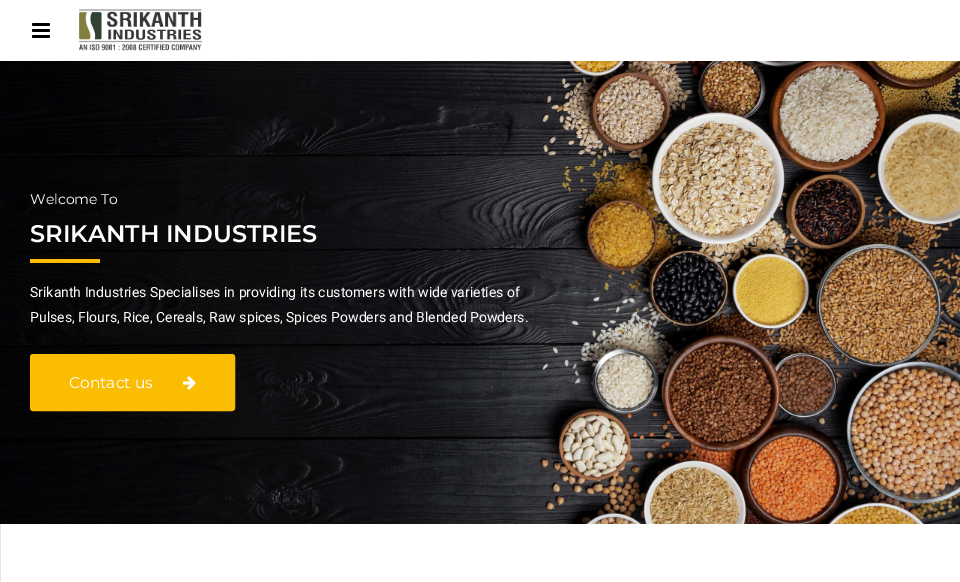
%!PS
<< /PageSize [960 582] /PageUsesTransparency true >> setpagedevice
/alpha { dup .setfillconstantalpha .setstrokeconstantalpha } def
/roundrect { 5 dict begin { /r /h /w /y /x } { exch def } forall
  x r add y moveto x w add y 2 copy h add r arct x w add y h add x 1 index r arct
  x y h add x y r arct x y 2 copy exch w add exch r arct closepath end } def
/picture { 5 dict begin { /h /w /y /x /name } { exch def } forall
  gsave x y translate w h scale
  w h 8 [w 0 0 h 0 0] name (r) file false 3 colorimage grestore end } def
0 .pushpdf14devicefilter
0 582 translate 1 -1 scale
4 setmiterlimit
1 setgray
0 0 960 582 rectfill
(img1.rgb) 32 23 18 15 picture
(img2.rgb) 79 9 123 42 picture
(img3.rgb) 0 61 960 463 picture
/Montserrat-Regular [14 0 0 -14 0 0] selectfont
30 204 moveto (Welcome To) show
/Montserrat-SemiBold [24 0 0 -24 0 0] selectfont
30 242 moveto (SRIKANTH INDUSTRIES) show
0.984 0.741 0.008 setrgbcolor
30 259 70 4 rectfill
/Roboto-Regular [14 0 0 -14 0 0] selectfont
1 setgray
30 297 moveto (Srikanth Industries Specialises in providing its customers with wide varieties of) show
30 322 moveto (Pulses, Flours, Rice, Cereals, Raw spices, Spices Powders and Blended Powders.) show
0.984 0.741 0.008 setrgbcolor
31 355 203 55 2 roundrect gsave fill grestore
2 setlinewidth
stroke
/Montserrat-Regular [15.5 0 0 -15.5 0 0] selectfont
1 setgray
69 388 moveto (Contact us) show
(img4.rgb) 183 376 13 14 picture
0.1 alpha
0 setgray
0 524 1 58 rectfill
.poppdf14devicefilter showpage
